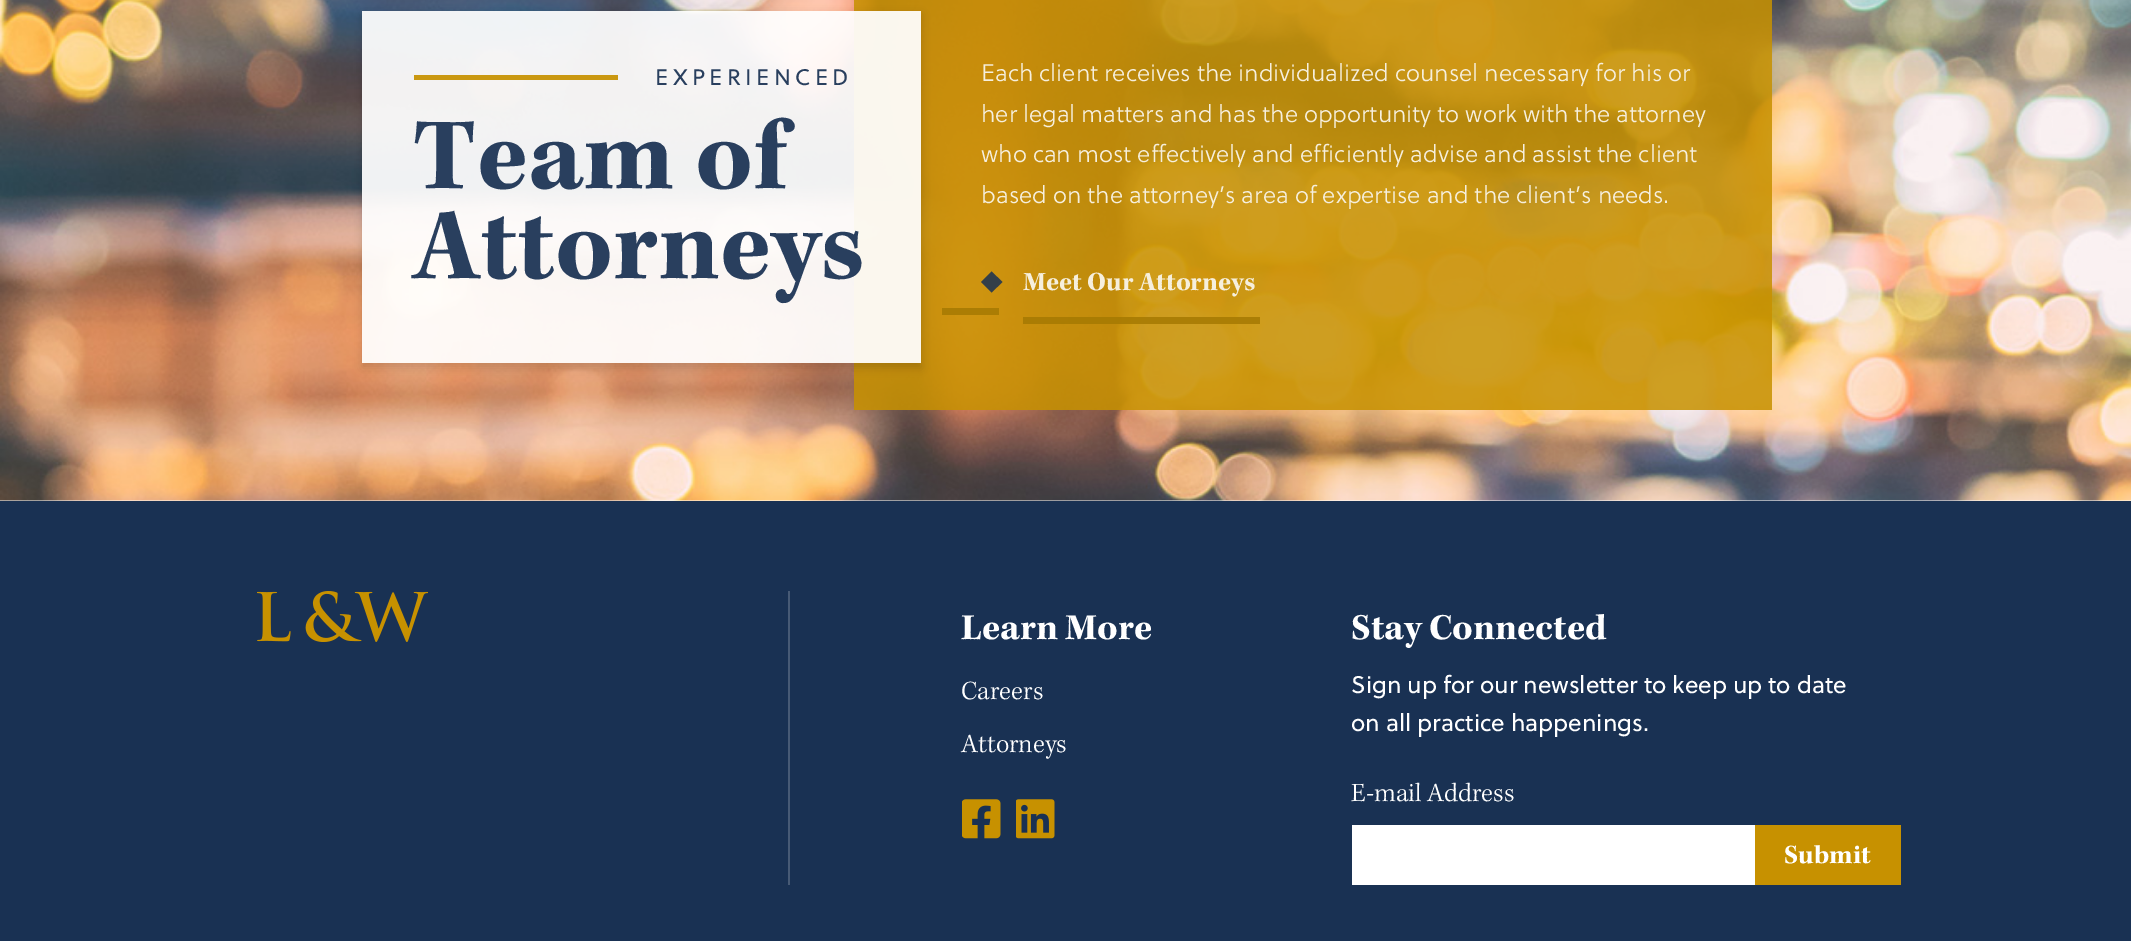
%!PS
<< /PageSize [2131 941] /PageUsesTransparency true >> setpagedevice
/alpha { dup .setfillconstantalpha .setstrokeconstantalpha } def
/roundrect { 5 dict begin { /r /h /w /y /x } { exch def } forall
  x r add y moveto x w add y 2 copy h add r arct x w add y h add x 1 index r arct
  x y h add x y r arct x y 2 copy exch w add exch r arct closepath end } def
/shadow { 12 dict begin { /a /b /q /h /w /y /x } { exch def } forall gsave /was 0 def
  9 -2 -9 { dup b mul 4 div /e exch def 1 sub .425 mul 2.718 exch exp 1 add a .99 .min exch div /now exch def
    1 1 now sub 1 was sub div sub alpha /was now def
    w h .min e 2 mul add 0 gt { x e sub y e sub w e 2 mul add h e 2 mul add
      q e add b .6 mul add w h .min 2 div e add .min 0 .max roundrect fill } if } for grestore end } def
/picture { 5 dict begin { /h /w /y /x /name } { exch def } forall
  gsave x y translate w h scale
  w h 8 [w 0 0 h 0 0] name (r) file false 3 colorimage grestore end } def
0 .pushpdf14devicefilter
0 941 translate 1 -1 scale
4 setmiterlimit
1 setgray
0 0 2131 941 rectfill
(img1.rgb) 0 0 2131 501 picture
0.86 alpha
0.78 0.569 0 setrgbcolor
854 0 918 410 rectfill
gsave
newpath 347 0 moveto 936 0 lineto 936 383 lineto 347 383 lineto closepath 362 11 moveto 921 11 lineto 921 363 lineto 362 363 lineto closepath eoclip newpath
1 alpha
0 setgray
362 15 559 353 0 4.5 0.15 shadow
grestore
0.93 alpha
1 setgray
362 11 559 352 rectfill
0.78 0.569 0 setrgbcolor
414 75 204 5 rectfill
/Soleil-Regular [22.5 0 0 -22.5 0 0] selectfont
1 alpha
0.161 0.247 0.369 setrgbcolor
655 85 moveto 4.5 0 (EXPERIENCED) ashow
/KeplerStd-Bold [105 0 0 -105 0 0] selectfont
413 188 moveto (Team of) show
413 278 moveto (Attorneys) show
/Soleil-Light [24 0 0 -24 0 0] selectfont
0.965 0.937 0.867 setrgbcolor
981 81 moveto (Each client receives the individualized counsel necessary for his or) show
981 122 moveto (her legal matters and has the opportunity to work with the attorney) show
981 162 moveto (who can most effectively and efficiently advise and assist the client) show
981 203 moveto (based on the attorney’s area of expertise and the client’s needs.) show
0.86 alpha
0.647 0.475 0.008 setrgbcolor
942 308 57 7 rectfill
1023 317 237 7 rectfill
1 alpha
0.2 0.247 0.286 setrgbcolor
newpath 991.5 271.5 moveto 1002.5 282 lineto 991.5 292.5 lineto 981 282 lineto closepath fill
/KeplerStd-Bold [27 0 0 -27 0 0] selectfont
0.965 0.937 0.867 setrgbcolor
1023 290 moveto (Meet Our Attorneys) show
0.098 0.192 0.325 setrgbcolor
0 501 2131 440 rectfill
0.278 0.353 0.459 setrgbcolor
788 591 2 294 rectfill
(img2.rgb) 257 591 171 51 picture
/KeplerStd-Bold [37.5 0 0 -37.5 0 0] selectfont
1 setgray
961 639 moveto (Learn More) show
/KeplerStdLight-Light [27 0 0 -27 0 0] selectfont
961 699 moveto (Careers) show
961 752 moveto (Attorneys) show
(img3.rgb) 962 799 39 40 picture
(img4.rgb) 1016 799 39 40 picture
/KeplerStd-Bold [37.5 0 0 -37.5 0 0] selectfont
1351 639 moveto (Stay Connected) show
/Soleil-Regular [24 0 0 -24 0 0] selectfont
1351 693 moveto (Sign up for our newsletter to keep up to date) show
1351 731 moveto (on all practice happenings.) show
/KeplerStdLight-Light [27 0 0 -27 0 0] selectfont
1351 801 moveto (E-mail Address) show
1352 825 403 60 rectfill
0.78 0.569 0 setrgbcolor
1755 825 146 60 rectfill
/KeplerStd-Bold [27 0 0 -27 0 0] selectfont
1 setgray
1784 863 moveto (Submit) show
.poppdf14devicefilter showpage
